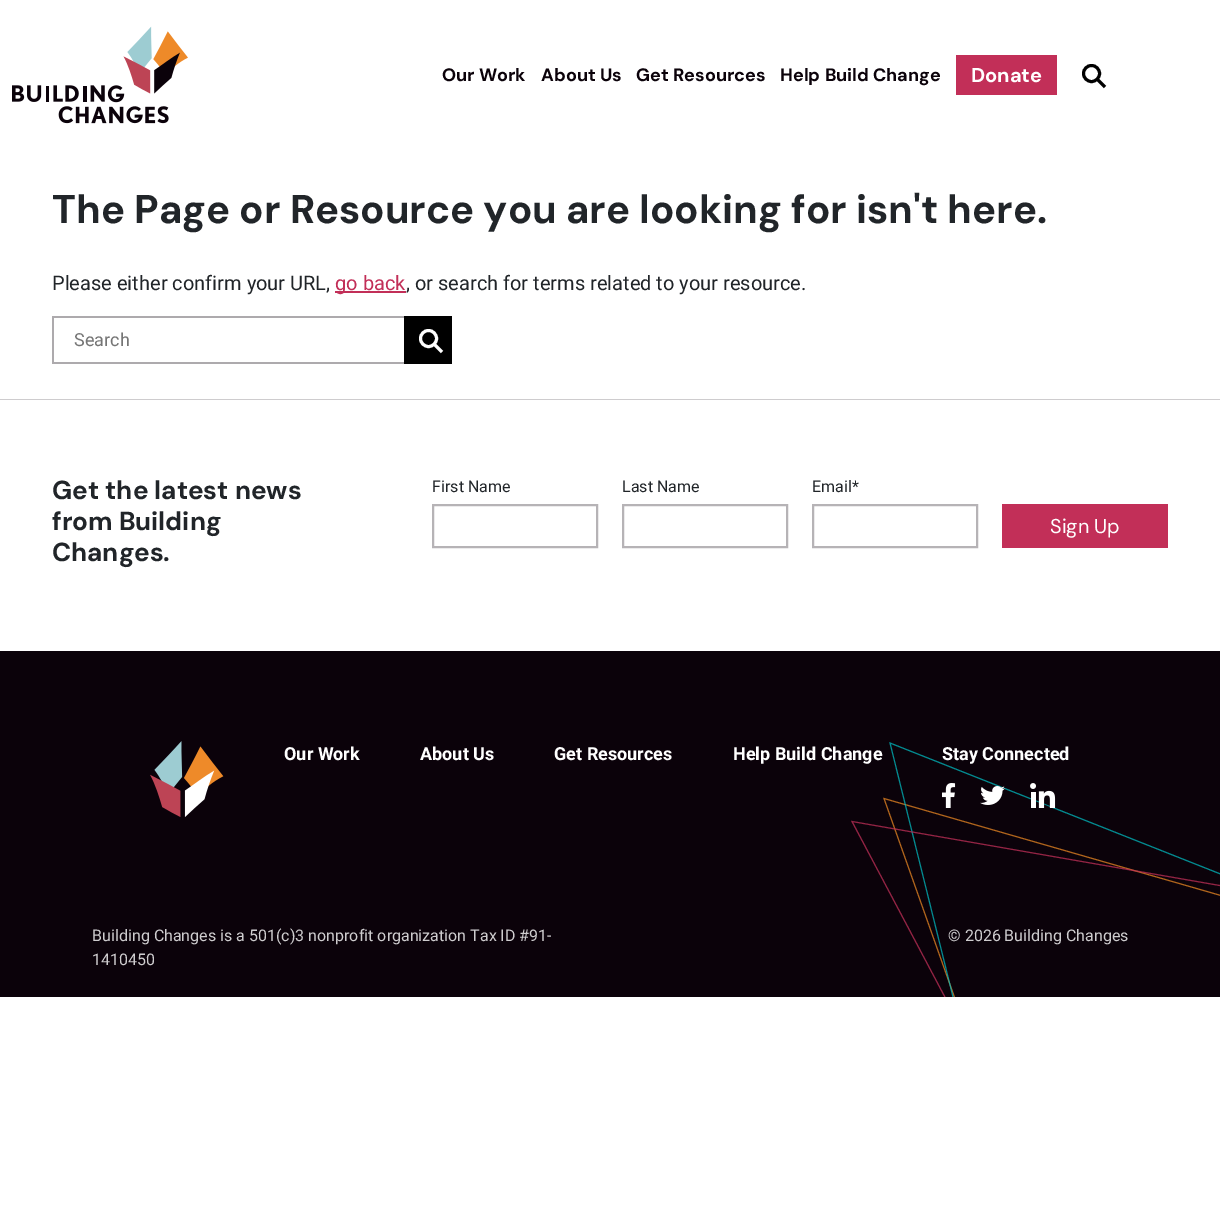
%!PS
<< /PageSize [1220 1206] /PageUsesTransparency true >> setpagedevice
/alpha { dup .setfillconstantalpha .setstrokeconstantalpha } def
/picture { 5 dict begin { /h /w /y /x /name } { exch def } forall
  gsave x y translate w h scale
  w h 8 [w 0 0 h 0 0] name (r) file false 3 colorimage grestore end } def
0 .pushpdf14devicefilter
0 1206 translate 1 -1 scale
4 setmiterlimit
1 setgray
0 0 1220 1206 rectfill
(img1.rgb) 12 26 176 98 picture
/DMSans-Bold [18 0 0 -18 0 0] selectfont
0.043 0.008 0.039 setrgbcolor
442 81 moveto (Our Work) show
541 81 moveto (About Us) show
636 81 moveto (Get Resources) show
780 81 moveto (Help Build Change) show
0.761 0.184 0.345 setrgbcolor
956 55 101 40 rectfill
/DMSans-Bold [20 0 0 -20 0 0] selectfont
1 setgray
971 82 moveto (Donate) show
0 setgray
3 setlinewidth
newpath 1091.5 73.5 8 0 360 arc closepath stroke
newpath 1097 79 moveto 1105 87 lineto stroke
/DMSans-Bold [40 0 0 -40 0 0] selectfont
0.129 0.145 0.161 setrgbcolor
52 223 moveto (The Page or Resource you are looking for isn't here.) show
/Heebo-Regular [20 0 0 -20 0 0] selectfont
52 290 moveto (Please either confirm your URL,) show
0.761 0.184 0.345 setrgbcolor
335 291 71 2 rectfill
335 290 moveto (go back) show
0.129 0.145 0.161 setrgbcolor
406 290 moveto (, or search for terms related to your resource.) show
0.678 0.667 0.678 setrgbcolor
52 316 352 2 rectfill
52 362 352 2 rectfill
52 316 2 48 rectfill
/Heebo-Regular [18 0 0 -18 0 0] selectfont
0.459 setgray
74 346 moveto (Search) show
0 setgray
404 316 48 48 rectfill
1 setgray
newpath 428.5 338.5 8 0 360 arc closepath stroke
newpath 434 344 moveto 442 352 lineto stroke
0.808 0.8 0.808 setrgbcolor
0 399 1220 1 rectfill
/DMSans-Bold [26 0 0 -26 0 0] selectfont
0.129 0.145 0.161 setrgbcolor
52 499 moveto (Get the latest news) show
52 530 moveto (from Building) show
52 561 moveto (Changes.) show
/Heebo-Regular [16 0 0 -16 0 0] selectfont
432 492 moveto (First Name) show
0.714 0.702 0.714 setrgbcolor
2 setlinewidth
433 505 164 42 rectstroke
0.129 0.145 0.161 setrgbcolor
622 492 moveto (Last Name) show
0.714 0.702 0.714 setrgbcolor
623 505 164 42 rectstroke
0.129 0.145 0.161 setrgbcolor
812 492 moveto (Email*) show
0.714 0.702 0.714 setrgbcolor
813 505 164 42 rectstroke
0.761 0.184 0.345 setrgbcolor
1002 504 166 44 rectfill
/DMSans-Regular [20 0 0 -20 0 0] selectfont
1 setgray
1050 533 moveto (Sign Up) show
0.043 0.008 0.039 setrgbcolor
0 651 1220 346 rectfill
gsave
760 654 460 343 rectclip
0.694 0.396 0.11 setrgbcolor
1 setlinewidth
newpath 1078.5 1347 moveto 884 798.5 lineto 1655 1020.5 lineto 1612 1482.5 lineto closepath stroke
0.75 alpha
0 0.725 0.745 setrgbcolor
newpath 1030 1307.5 moveto 890 743 lineto 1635.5 1038.5 lineto 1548 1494 lineto closepath stroke
0.761 0.184 0.345 setrgbcolor
newpath 1159.5 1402.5 moveto 852 821.5 lineto 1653.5 961 lineto 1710 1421.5 lineto closepath stroke
grestore
(img2.rgb) 150 741 74 76 picture
/Heebo-Bold [18 0 0 -18 0 0] selectfont
1 setgray
284 760 moveto (Our Work) show
420 760 moveto (About Us) show
554 760 moveto (Get Resources) show
733 760 moveto (Help Build Change) show
942 760 moveto (Stay Connected) show
(img3.rgb) 942 783 14 25 picture
(img4.rgb) 980 786 25 19 picture
(img5.rgb) 1030 783 26 25 picture
/Heebo-Regular [16 0 0 -16 0 0] selectfont
0.808 0.8 0.808 setrgbcolor
92 941 moveto (Building Changes is a 501\(c\)3 nonprofit organization Tax ID #91-) show
92 965 moveto (1410450) show
948 941 moveto (© 2026 Building Changes) show
.poppdf14devicefilter showpage
